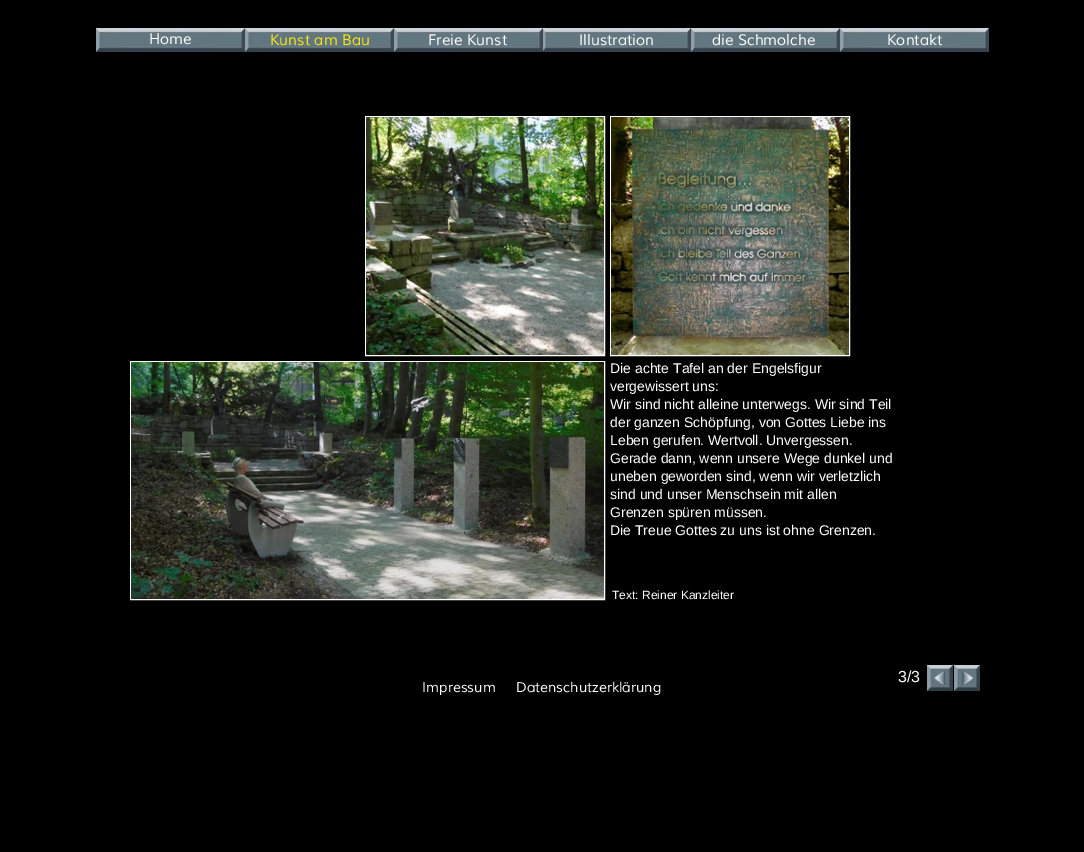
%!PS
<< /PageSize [1084 852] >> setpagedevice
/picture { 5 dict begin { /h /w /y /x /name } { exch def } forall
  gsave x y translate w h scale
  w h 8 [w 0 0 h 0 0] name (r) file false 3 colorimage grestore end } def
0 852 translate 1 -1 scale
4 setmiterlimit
0 setgray
0 0 1084 852 rectfill
(img1.rgb) 96 28 149 24 picture
/Muli-Italic [15 0 0 -15 0 0] selectfont
1 setgray
149 44 moveto (Home) show
(img1.rgb) 245 28 149 24 picture
0.98 0.914 0.051 setrgbcolor
270 45 moveto (Kunst am Bau) show
(img1.rgb) 394 28 149 24 picture
(img1.rgb) 691 28 149 24 picture
1 setgray
428 45 moveto (Freie Kunst) show
(img2.rgb) 543 28 148 24 picture
579 45 moveto (Illustration) show
712 45 moveto (die Schmolche) show
(img1.rgb) 840 28 149 24 picture
887 45 moveto (Kontakt) show
365.5 116.5 239 239 rectstroke
(img3.rgb) 366 117 238 238 picture
610.5 116.5 239 239 rectstroke
(img4.rgb) 611 117 238 238 picture
130.5 361.5 474 238 rectstroke
(img5.rgb) 131 362 473 237 picture
/LiberationSans-Regular [14 0 0 -14 0 0] selectfont
610 373 moveto (Die achte Tafel an der Engelsfigur) show
610 391 moveto (vergewissert uns:) show
610 409 moveto (Wir sind nicht alleine unterwegs. Wir sind Teil) show
610 427 moveto (der ganzen Schöpfung, von Gottes Liebe ins) show
610 445 moveto (Leben gerufen. Wertvoll. Unvergessen.) show
610 463 moveto (Gerade dann, wenn unsere Wege dunkel und) show
610 481 moveto (uneben geworden sind, wenn wir verletzlich) show
610 499 moveto (sind und unser Menschsein mit allen) show
610 517 moveto (Grenzen spüren müssen.) show
610 535 moveto (Die Treue Gottes zu uns ist ohne Grenzen.) show
/LiberationSans-Regular [12 0 0 -12 0 0] selectfont
612 599 moveto (Text: Reiner Kanzleiter) show
/LiberationSans-Regular [16 0 0 -16 0 0] selectfont
898 682 moveto (3/3) show
(img6.rgb) 927 665 26 26 picture
(img7.rgb) 954 665 26 26 picture
/Muli-Italic [14 0 0 -14 0 0] selectfont
422 692 moveto (Impressum) show
516 692 moveto (Datenschutzerklärung) show
showpage
